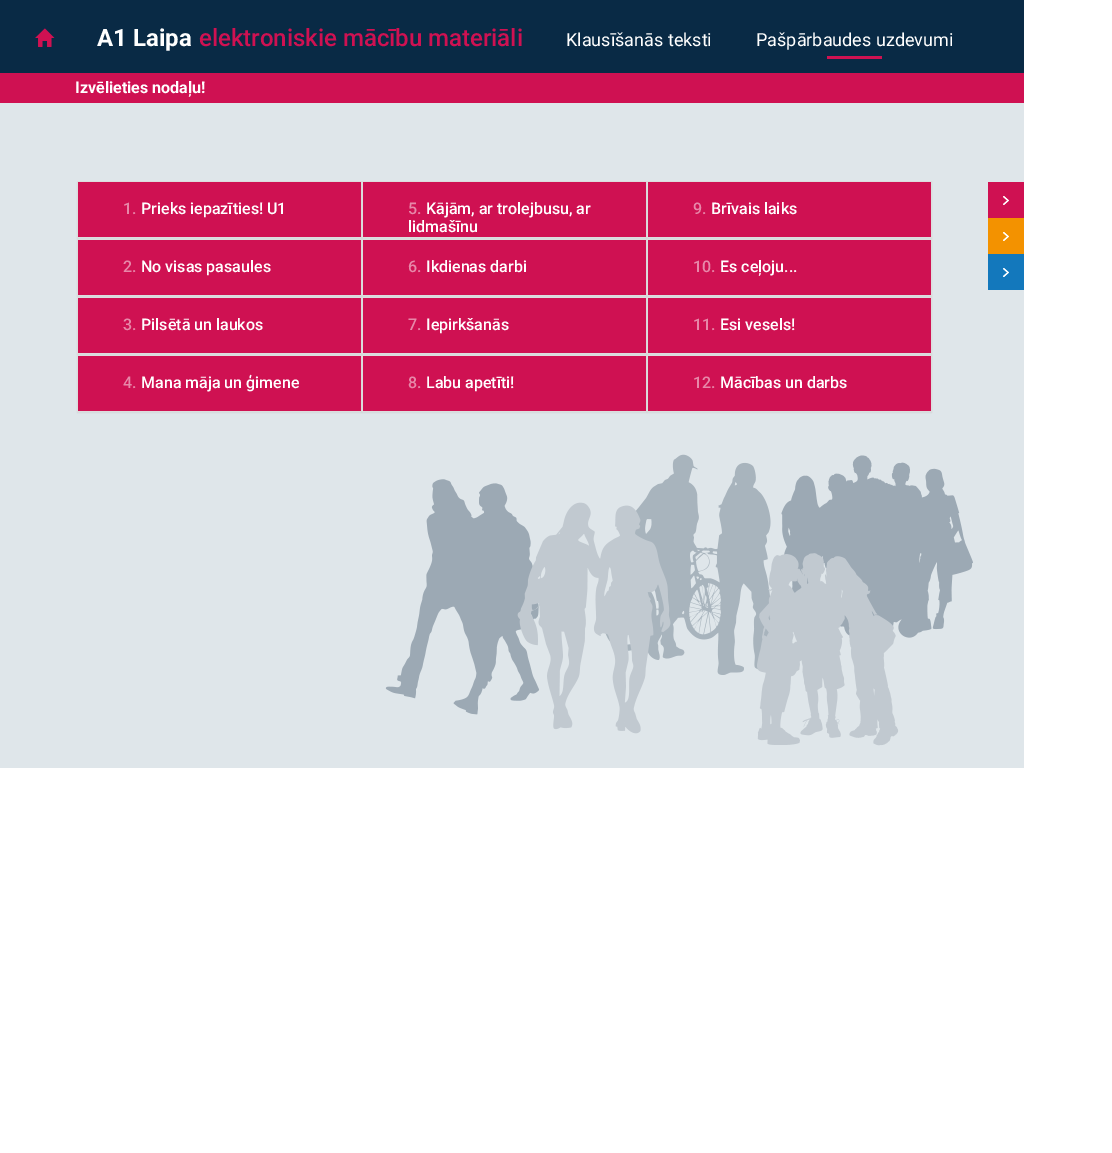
%!PS
<< /PageSize [1112 1153] /PageUsesTransparency true >> setpagedevice
/alpha { dup .setfillconstantalpha .setstrokeconstantalpha } def
/roundrect { 5 dict begin { /r /h /w /y /x } { exch def } forall
  x r add y moveto x w add y 2 copy h add r arct x w add y h add x 1 index r arct
  x y h add x y r arct x y 2 copy exch w add exch r arct closepath end } def
/shadow { 12 dict begin { /a /b /q /h /w /y /x } { exch def } forall gsave /was 0 def
  9 -2 -9 { dup b mul 4 div /e exch def 1 sub .425 mul 2.718 exch exp 1 add a .99 .min exch div /now exch def
    1 1 now sub 1 was sub div sub alpha /was now def
    w h .min e 2 mul add 0 gt { x e sub y e sub w e 2 mul add h e 2 mul add
      q e add b .6 mul add w h .min 2 div e add .min 0 .max roundrect fill } if } for grestore end } def
/picture { 5 dict begin { /h /w /y /x /name } { exch def } forall
  gsave x y translate w h scale
  w h 8 [w 0 0 h 0 0] name (r) file false 3 colorimage grestore end } def
0 .pushpdf14devicefilter
0 1153 translate 1 -1 scale
4 setmiterlimit
1 setgray
0 0 1112 1153 rectfill
0.875 0.902 0.918 setrgbcolor
0 103 1024 665 rectfill
0.035 0.165 0.271 setrgbcolor
0 0 1024 73 rectfill
(img1.rgb) 35 28 20 19 picture
/Roboto-Bold [24 0 0 -24 0 0] selectfont
1 setgray
97 46 moveto (A1 Laipa) show
/Roboto-Medium [24 0 0 -24 0 0] selectfont
0.812 0.067 0.322 setrgbcolor
199 46 moveto (elektroniskie mācību materiāli) show
/Roboto-Regular [18 0 0 -18 0 0] selectfont
1 setgray
566 46 moveto (Klausīšanās teksti) show
0.812 0.071 0.322 setrgbcolor
827 56 55 3 rectfill
1 setgray
756 46 moveto (Pašpārbaudes uzdevumi) show
0.812 0.067 0.322 setrgbcolor
0 73 1024 30 rectfill
/Roboto-Bold [16 0 0 -16 0 0] selectfont
1 setgray
75 93 moveto (Izvēlieties nodaļu!) show
(img2.rgb) 385 454 588 292 picture
0 setgray
77 182 285 57 0 0.5 0.05 shadow
0.867 setgray
77.5 181.5 284 56 rectstroke
0.812 0.067 0.322 setrgbcolor
78 182 283 55 rectfill
/Roboto-Medium [16 0 0 -16 0 0] selectfont
0.906 0.533 0.663 setrgbcolor
123 214 moveto (1.) show
1 setgray
141 214 moveto (Prieks iepazīties! U1) show
0 setgray
77 240 285 57 0 0.5 0.05 shadow
0.867 setgray
77.5 239.5 284 56 rectstroke
0.812 0.067 0.322 setrgbcolor
78 240 283 55 rectfill
0.906 0.533 0.663 setrgbcolor
123 272 moveto (2.) show
1 setgray
141 272 moveto (No visas pasaules) show
0 setgray
77 298 285 57 0 0.5 0.05 shadow
0.867 setgray
77.5 297.5 284 56 rectstroke
0.812 0.067 0.322 setrgbcolor
78 298 283 55 rectfill
0.906 0.533 0.663 setrgbcolor
123 330 moveto (3.) show
1 setgray
141 330 moveto (Pilsētā un laukos) show
0 setgray
77 356 285 57 0 0.5 0.05 shadow
0.867 setgray
77.5 355.5 284 56 rectstroke
0.812 0.067 0.322 setrgbcolor
78 356 283 55 rectfill
0.906 0.533 0.663 setrgbcolor
123 388 moveto (4.) show
1 setgray
141 388 moveto (Mana māja un ģimene) show
0 setgray
362 182 285 57 0 0.5 0.05 shadow
0.867 setgray
362.5 181.5 284 56 rectstroke
0.812 0.067 0.322 setrgbcolor
363 182 283 55 rectfill
0.906 0.533 0.663 setrgbcolor
408 214 moveto (5.) show
1 setgray
426 214 moveto (Kājām, ar trolejbusu, ar) show
408 232 moveto (lidmašīnu) show
0 setgray
362 240 285 57 0 0.5 0.05 shadow
0.867 setgray
362.5 239.5 284 56 rectstroke
0.812 0.067 0.322 setrgbcolor
363 240 283 55 rectfill
0.906 0.533 0.663 setrgbcolor
408 272 moveto (6.) show
1 setgray
426 272 moveto (Ikdienas darbi) show
0 setgray
362 298 285 57 0 0.5 0.05 shadow
0.867 setgray
362.5 297.5 284 56 rectstroke
0.812 0.067 0.322 setrgbcolor
363 298 283 55 rectfill
0.906 0.533 0.663 setrgbcolor
408 330 moveto (7.) show
1 setgray
426 330 moveto (Iepirkšanās) show
0 setgray
362 356 285 57 0 0.5 0.05 shadow
0.867 setgray
362.5 355.5 284 56 rectstroke
0.812 0.067 0.322 setrgbcolor
363 356 283 55 rectfill
0.906 0.533 0.663 setrgbcolor
408 388 moveto (8.) show
1 setgray
426 388 moveto (Labu apetīti!) show
0 setgray
647 182 285 57 0 0.5 0.05 shadow
0.867 setgray
647.5 181.5 284 56 rectstroke
0.812 0.067 0.322 setrgbcolor
648 182 283 55 rectfill
0.906 0.533 0.663 setrgbcolor
693 214 moveto (9.) show
1 setgray
711 214 moveto (Brīvais laiks) show
0 setgray
647 240 285 57 0 0.5 0.05 shadow
0.867 setgray
647.5 239.5 284 56 rectstroke
0.812 0.067 0.322 setrgbcolor
648 240 283 55 rectfill
0.906 0.533 0.663 setrgbcolor
693 272 moveto (10.) show
1 setgray
720 272 moveto (Es ceļoju...) show
0 setgray
647 298 285 57 0 0.5 0.05 shadow
0.867 setgray
647.5 297.5 284 56 rectstroke
0.812 0.067 0.322 setrgbcolor
648 298 283 55 rectfill
0.906 0.533 0.663 setrgbcolor
693 330 moveto (11.) show
1 setgray
720 330 moveto (Esi vesels!) show
0 setgray
647 356 285 57 0 0.5 0.05 shadow
0.867 setgray
647.5 355.5 284 56 rectstroke
0.812 0.067 0.322 setrgbcolor
648 356 283 55 rectfill
0.906 0.533 0.663 setrgbcolor
693 388 moveto (12.) show
1 setgray
720 388 moveto (Mācības un darbs) show
0.812 0.067 0.322 setrgbcolor
988 182 36 36 rectfill
(img3.rgb) 1003 196 6 9 picture
0.953 0.573 0 setrgbcolor
988 218 36 36 rectfill
(img4.rgb) 1003 232 6 9 picture
0.075 0.471 0.737 setrgbcolor
988 254 36 36 rectfill
(img5.rgb) 1003 268 6 9 picture
.poppdf14devicefilter showpage
